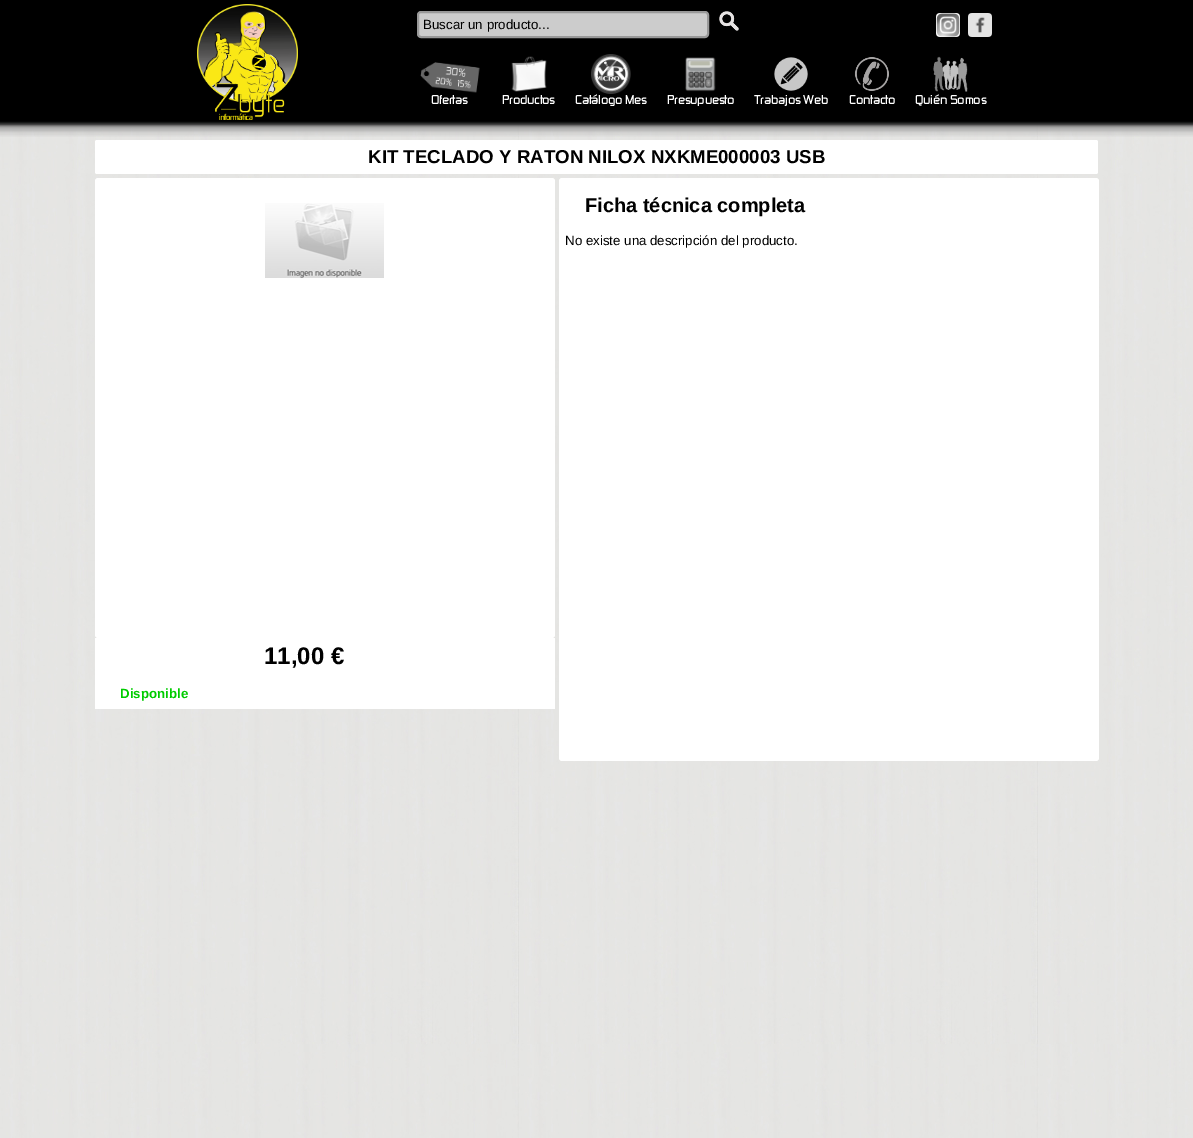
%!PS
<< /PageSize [1193 1138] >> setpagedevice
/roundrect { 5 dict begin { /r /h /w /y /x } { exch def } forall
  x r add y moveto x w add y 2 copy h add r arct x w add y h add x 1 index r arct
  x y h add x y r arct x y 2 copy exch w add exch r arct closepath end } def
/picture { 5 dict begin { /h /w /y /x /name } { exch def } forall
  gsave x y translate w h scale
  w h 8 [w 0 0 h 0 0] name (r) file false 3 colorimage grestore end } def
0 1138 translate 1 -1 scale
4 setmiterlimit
1 setgray
0 0 1193 1138 rectfill
(img1.rgb) 0 125 1193 1013 picture
0 setgray
0 0 1193 125 rectfill
(img2.rgb) 197 4 101 116 picture
0.8 setgray
418 12 290 25 3 roundrect gsave fill grestore
0.6 setgray
2 setlinewidth
stroke
/LiberationSans-Regular [13.3 0 0 -13.3 0 0] selectfont
0 setgray
423 29 moveto (Buscar un producto...) show
(img3.rgb) 719 11 20 20 picture
(img4.rgb) 936 13 24 24 picture
(img5.rgb) 968 13 24 24 picture
(img6.rgb) 420 62 60 31 picture
/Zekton-Bold [12 0 0 -12 0 0] selectfont
1 setgray
431 104 moveto (Ofertas) show
(img7.rgb) 511 56 36 36 picture
502 104 moveto (Productos) show
(img8.rgb) 591 54 40 40 picture
575 104 moveto (Catálogo Mes) show
(img9.rgb) 685 57 31 35 picture
667 104 moveto (Presupuesto) show
(img10.rgb) 774 57 34 34 picture
754 104 moveto (Trabajos Web) show
(img11.rgb) 854 57 35 34 picture
849 104 moveto (Contacto) show
(img12.rgb) 933 56 35 36 picture
915 104 moveto (Quién Somos) show
95 140 1003 34 2 roundrect fill
/LiberationSans-Bold [18.7 0 0 -18.7 0 0] selectfont
0 setgray
368 163 moveto (KIT TECLADO Y RATON NILOX NXKME000003 USB) show
1 setgray
95 178 460 460 3 roundrect fill
(img13.rgb) 265 203 119 75 picture
559 178 540 583 3 roundrect fill
/LiberationSans-Bold [20 0 0 -20 0 0] selectfont
0 setgray
585 212 moveto (Ficha técnica completa) show
/LiberationSans-Regular [13.3 0 0 -13.3 0 0] selectfont
565 245 moveto (No existe una descripción del producto.) show
1 setgray
95 638 460 71 rectfill
/LiberationSans-Bold [24 0 0 -24 0 0] selectfont
0 setgray
264 664 moveto (11,00 €) show
/LiberationSans-Bold [13.3 0 0 -13.3 0 0] selectfont
0 0.8 0 setrgbcolor
120 698 moveto (Disponible) show
(img14.rgb) 0 121 1193 16 picture
showpage
